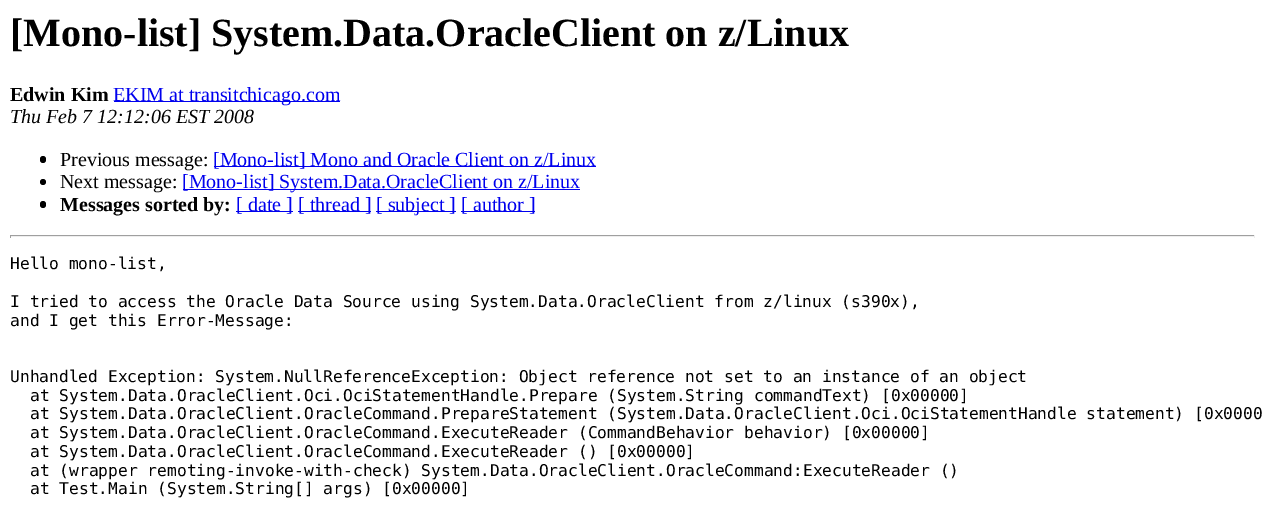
%!PS
<< /PageSize [1264 505] >> setpagedevice
/roundrect { 5 dict begin { /r /h /w /y /x } { exch def } forall
  x r add y moveto x w add y 2 copy h add r arct x w add y h add x 1 index r arct
  x y h add x y r arct x y 2 copy exch w add exch r arct closepath end } def
0 505 translate 1 -1 scale
4 setmiterlimit
1 setgray
0 0 1264 505 rectfill
/LiberationSerif-Bold [40 0 0 -40 0 0] selectfont
0 setgray
10 46 moveto ([Mono-list] System.Data.OracleClient on z/Linux) show
/LiberationSerif-Bold [20 0 0 -20 0 0] selectfont
10 101 moveto (Edwin Kim) show
0 0 0.933 setrgbcolor
114 101 226 1 rectfill
/LiberationSerif-Regular [20 0 0 -20 0 0] selectfont
113 101 moveto (EKIM at transitchicago.com) show
/LiberationSerif-Italic [20 0 0 -20 0 0] selectfont
0 setgray
10 123 moveto (Thu Feb 7 12:12:06 EST 2008) show
40 156 6 7 3 roundrect fill
/LiberationSerif-Regular [20 0 0 -20 0 0] selectfont
60 166 moveto (Previous message:) show
0 0 0.933 setrgbcolor
214 166 382 1 rectfill
213 166 moveto ([Mono-list] Mono and Oracle Client on z/Linux) show
0 setgray
newpath 43 182 3 0 360 arc closepath fill
60 188 moveto (Next message:) show
0 0 0.933 setrgbcolor
183 189 397 1 rectfill
182 188 moveto ([Mono-list] System.Data.OracleClient on z/Linux) show
0 setgray
40 201 6 7 3 roundrect fill
/LiberationSerif-Bold [20 0 0 -20 0 0] selectfont
60 211 moveto (Messages sorted by:) show
0 0 0.933 setrgbcolor
236 211 57 1 rectfill
/LiberationSerif-Regular [20 0 0 -20 0 0] selectfont
236 211 moveto ([ date ]) show
298 211 73 1 rectfill
298 211 moveto ([ thread ]) show
376 211 80 1 rectfill
376 211 moveto ([ subject ]) show
461 211 74 1 rectfill
461 211 moveto ([ author ]) show
0.624 setgray
10 235 1245 1 rectfill
0.933 setgray
1254 235 1 3 rectfill
10 236 1245 1 rectfill
0.624 setgray
10 235 1 3 rectfill
/DejaVuSansMono-Regular [16.25 0 0 -16.25 0 0] selectfont
0 setgray
10 269 moveto (Hello mono-list,) show
10 307 moveto (I tried to access the Oracle Data Source using System.Data.OracleClient from z/linux \(s390x\),) show
10 326 moveto (and I get this Error-Message:) show
10 382 moveto (Unhandled Exception: System.NullReferenceException: Object reference not set to an instance of an object) show
30 401 moveto (at System.Data.OracleClient.Oci.OciStatementHandle.Prepare \(System.String commandText\) [0x00000]) show
30 419 moveto (at System.Data.OracleClient.OracleCommand.PrepareStatement \(System.Data.OracleClient.Oci.OciStatementHandle statement\) [0x0000) show
30 438 moveto (at System.Data.OracleClient.OracleCommand.ExecuteReader \(CommandBehavior behavior\) [0x00000]) show
30 457 moveto (at System.Data.OracleClient.OracleCommand.ExecuteReader \(\) [0x00000]) show
30 476 moveto (at \(wrapper remoting-invoke-with-check\) System.Data.OracleClient.OracleCommand:ExecuteReader \(\)) show
30 494 moveto (at Test.Main \(System.String[] args\) [0x00000]) show
showpage
